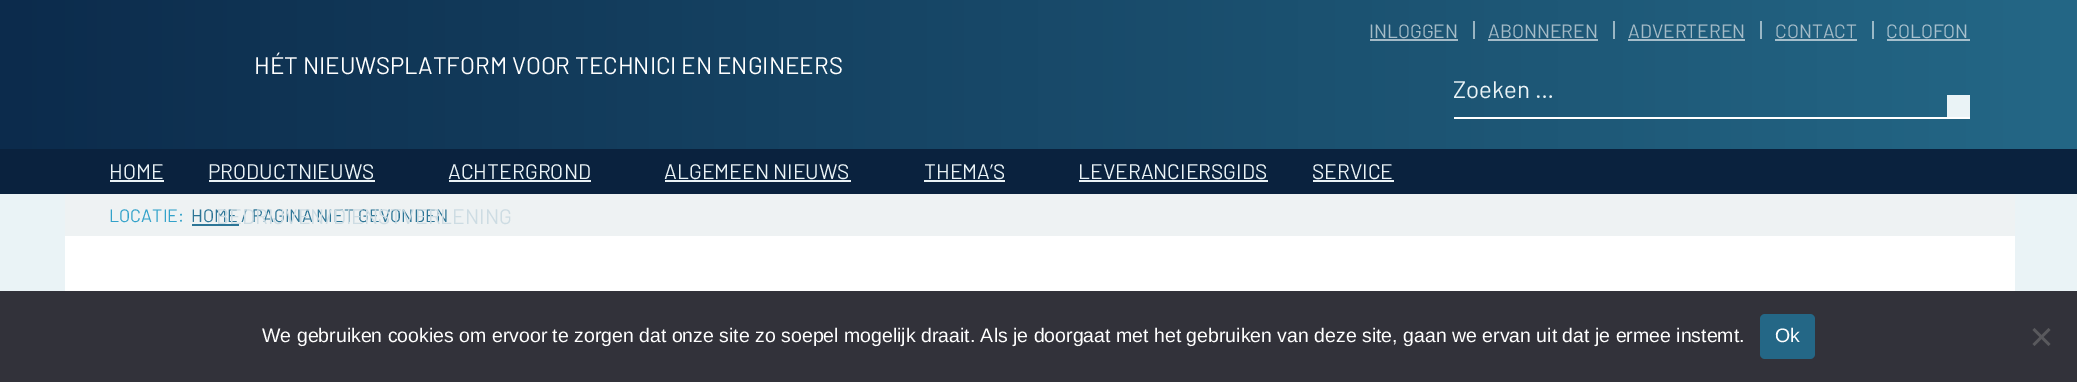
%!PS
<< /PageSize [2077 382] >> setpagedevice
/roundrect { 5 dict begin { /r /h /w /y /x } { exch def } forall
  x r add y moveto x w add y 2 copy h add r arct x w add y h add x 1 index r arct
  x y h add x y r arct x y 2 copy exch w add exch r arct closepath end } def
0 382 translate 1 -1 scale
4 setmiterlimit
1 setgray
0 0 2077 382 rectfill
gsave newpath 0 0 moveto 2077 0 lineto 2077 149 lineto 0 149 lineto closepath clip newpath
<< /ShadingType 2 /ColorSpace /DeviceRGB /Coords [0 118 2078 118] /Extend [true true] /Function << /FunctionType 2 /Domain [0 1] /C0 [0.047 0.169 0.298] /C1 [0.141 0.404 0.525] /N 1 >> >> shfill grestore
gsave newpath 1887 39 moveto 1970 39 lineto 1970 41 lineto 1887 41 lineto closepath clip newpath
<< /ShadingType 2 /ColorSpace /DeviceRGB /Coords [0 118 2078 118] /Extend [true true] /Function << /FunctionType 2 /Domain [0 1] /C0 [0.62 0.667 0.718] /C1 [0.655 0.761 0.812] /N 1 >> >> shfill grestore
gsave newpath 1775 39 moveto 1857 39 lineto 1857 41 lineto 1775 41 lineto closepath clip newpath
<< /ShadingType 2 /ColorSpace /DeviceRGB /Coords [0 118 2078 118] /Extend [true true] /Function << /FunctionType 2 /Domain [0 1] /C0 [0.62 0.667 0.718] /C1 [0.655 0.761 0.812] /N 1 >> >> shfill grestore
gsave newpath 1628 39 moveto 1745 39 lineto 1745 41 lineto 1628 41 lineto closepath clip newpath
<< /ShadingType 2 /ColorSpace /DeviceRGB /Coords [0 118 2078 118] /Extend [true true] /Function << /FunctionType 2 /Domain [0 1] /C0 [0.62 0.667 0.718] /C1 [0.655 0.761 0.812] /N 1 >> >> shfill grestore
gsave newpath 1488 39 moveto 1598 39 lineto 1598 41 lineto 1488 41 lineto closepath clip newpath
<< /ShadingType 2 /ColorSpace /DeviceRGB /Coords [0 118 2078 118] /Extend [true true] /Function << /FunctionType 2 /Domain [0 1] /C0 [0.62 0.667 0.718] /C1 [0.655 0.761 0.812] /N 1 >> >> shfill grestore
gsave newpath 1370 39 moveto 1458 39 lineto 1458 41 lineto 1370 41 lineto closepath clip newpath
<< /ShadingType 2 /ColorSpace /DeviceRGB /Coords [0 118 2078 118] /Extend [true true] /Function << /FunctionType 2 /Domain [0 1] /C0 [0.62 0.667 0.718] /C1 [0.655 0.761 0.812] /N 1 >> >> shfill grestore
/Barlow-Regular [24 0 0 -24 0 0] selectfont
254 74 moveto (HÉT NIEUWSPLATFORM VOOR TECHNICI EN ENGINEERS) show
/Barlow-Regular [19.25 0 0 -19.25 0 0] selectfont
0.643 0.733 0.78 setrgbcolor
1369 38 moveto (INLOGGEN) show
0.596 0.706 0.761 setrgbcolor
1473 21 2 18 rectfill
0.643 0.733 0.78 setrgbcolor
1488 38 moveto (ABONNEREN) show
0.6 0.714 0.769 setrgbcolor
1613 21 2 18 rectfill
0.643 0.733 0.78 setrgbcolor
1628 38 moveto (ADVERTEREN) show
0.6 0.718 0.776 setrgbcolor
1760 21 2 18 rectfill
0.643 0.733 0.78 setrgbcolor
1775 38 moveto (CONTACT) show
0.604 0.725 0.78 setrgbcolor
1872 21 2 18 rectfill
0.655 0.753 0.804 setrgbcolor
1886 38 moveto (COLOFON) show
1 setgray
1454 117 516 2 rectfill
gsave
1454 75 400 29 rectclip
/Barlow-Regular [24 0 0 -24 0 0] selectfont
0.918 0.953 0.965 setrgbcolor
1453 98 moveto (Zoeken …) show
grestore
0.918 0.953 0.965 setrgbcolor
1947 95 23 22 rectfill
0.039 0.133 0.243 setrgbcolor
0 149 2077 45 rectfill
/Barlow-Regular [21 0 0 -21 0 0] selectfont
0.918 0.953 0.965 setrgbcolor
109 179 moveto (HOME) show
110 180 54 2 rectfill
208 179 moveto (PRODUCTNIEUWS) show
209 180 166 2 rectfill
0 194 2077 97 rectfill
0.933 0.949 0.953 setrgbcolor
65 194 1950 42 rectfill
/Barlow-Regular [18 0 0 -18 0 0] selectfont
0.173 0.459 0.588 setrgbcolor
191 222 moveto (HOME / PAGINA NIET GEVONDEN) show
192 224 47 2 rectfill
/Barlow-Regular [21 0 0 -21 0 0] selectfont
0.804 0.863 0.89 setrgbcolor
216 224 moveto (BEDRIJVEN/DIENSTVERLENING) show
0.918 0.953 0.965 setrgbcolor
448 179 moveto (ACHTERGROND) show
449 180 142 2 rectfill
664 179 moveto (ALGEMEEN NIEUWS) show
665 180 186 2 rectfill
924 179 moveto (THEMA’S) show
924 180 81 2 rectfill
1078 179 moveto (LEVERANCIERSGIDS) show
1079 180 189 2 rectfill
1312 179 moveto (SERVICE) show
1313 180 81 2 rectfill
/Barlow-Regular [18 0 0 -18 0 0] selectfont
0.196 0.635 0.792 setrgbcolor
109 222 moveto (LOCATIE:) show
1 setgray
65 236 1950 55 rectfill
0.196 0.196 0.227 setrgbcolor
0 291 2077 91 rectfill
/LiberationSans-Regular [19.5 0 0 -19.5 0 0] selectfont
1 setgray
262 342 moveto (We gebruiken cookies om ervoor te zorgen dat onze site zo soepel mogelijk draait. Als je doorgaat met het gebruiken van deze site, gaan we ervan uit dat je ermee instemt.) show
0.141 0.404 0.525 setrgbcolor
1760 314 55 45 5 roundrect fill
1 setgray
1775 342 moveto (Ok) show
0.349 0.349 0.365 setrgbcolor
newpath 2048.5 328 moveto 2050.5 330 lineto 2034.5 346 lineto 2032.5 344 lineto closepath fill
newpath 2032.5 330 moveto 2034.5 328 lineto 2050.5 344 lineto 2048.5 346 lineto closepath fill
showpage
